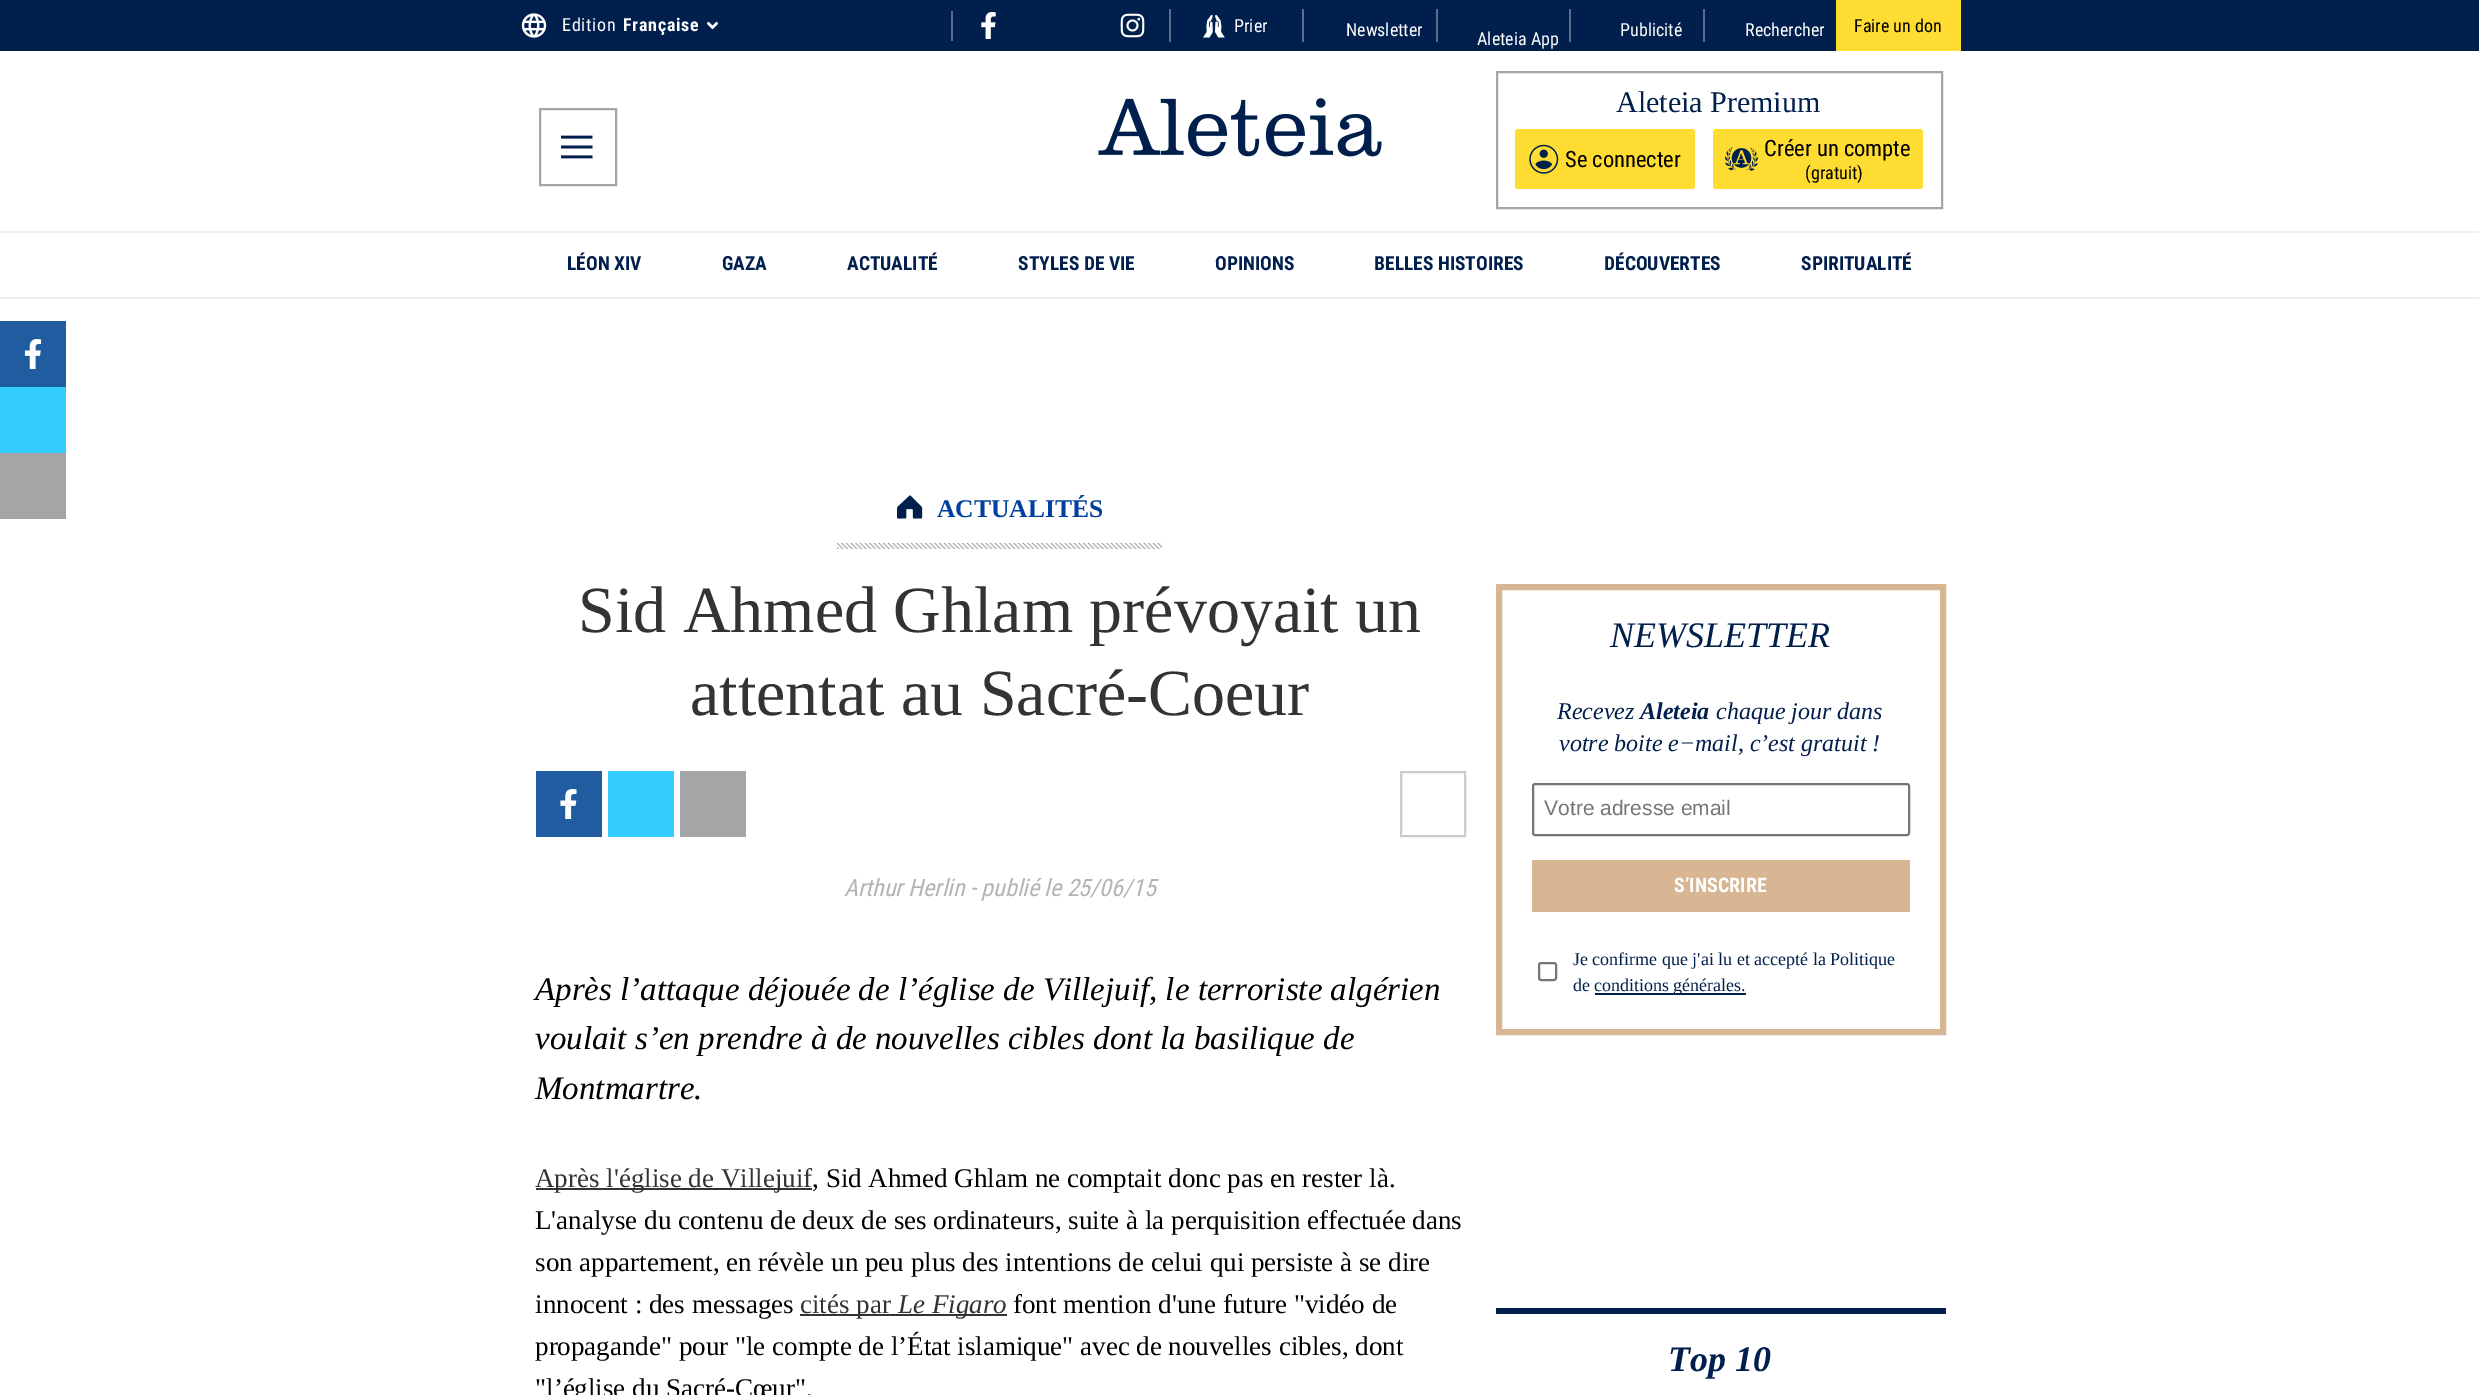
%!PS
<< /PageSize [2479 1395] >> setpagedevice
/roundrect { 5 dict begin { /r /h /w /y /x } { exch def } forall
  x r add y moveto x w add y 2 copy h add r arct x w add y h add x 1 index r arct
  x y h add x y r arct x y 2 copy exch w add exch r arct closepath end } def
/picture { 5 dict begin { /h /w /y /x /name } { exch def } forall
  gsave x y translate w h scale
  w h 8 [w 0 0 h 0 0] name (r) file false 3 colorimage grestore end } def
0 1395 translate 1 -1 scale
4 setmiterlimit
1 setgray
0 0 2479 1395 rectfill
0 0.122 0.302 setrgbcolor
0 0 2479 51 rectfill
(img1.rgb) 521 13 26 25 picture
/RobotoCondensed-Regular [18 0 0 -18 0 0] selectfont
1 setgray
562 31 moveto 0.75 0 (Edition) ashow
/RobotoCondensed-Bold [18 0 0 -18 0 0] selectfont
623 31 moveto 0.75 0 (Française) ashow
(img2.rgb) 707 21 12 9 picture
0.349 0.427 0.545 setrgbcolor
951 11 2 30 rectfill
(img3.rgb) 981 12 15 27 picture
(img4.rgb) 1120 13 25 25 picture
1169 9 2 33 rectfill
(img5.rgb) 1203 15 22 23 picture
/RobotoCondensed-Regular [18 0 0 -18 0 0] selectfont
1 setgray
1234 32 moveto (Prier) show
0.349 0.427 0.545 setrgbcolor
1302 9 2 33 rectfill
1 setgray
1346 36 moveto (Newsletter) show
0.349 0.427 0.545 setrgbcolor
1569 9 2 33 rectfill
1 setgray
1620 36 moveto (Publicité) show
0.349 0.427 0.545 setrgbcolor
1703 9 2 33 rectfill
1 setgray
1745 36 moveto (Rechercher) show
1 0.863 0.192 setrgbcolor
1836 0 125 51 rectfill
0 setgray
1854 32 moveto (Faire un don) show
0.349 0.427 0.545 setrgbcolor
1436 9 2 33 rectfill
1 setgray
1477 45 moveto (Aleteia App) show
0.647 setgray
2 setlinewidth
540 109 76 76 rectstroke
(img6.rgb) 561 135 32 24 picture
(img7.rgb) 1098 98 284 59 picture
1497 72 445 136 rectstroke
/LiberationSerif-Regular [30 0 0 -30 0 0] selectfont
0 0.122 0.302 setrgbcolor
1616 112 moveto (Aleteia Premium) show
1 0.863 0.192 setrgbcolor
1515 129 180 60 3 roundrect fill
(img8.rgb) 1529 144 30 30 picture
/RobotoCondensed-Regular [22.5 0 0 -22.5 0 0] selectfont
0 setgray
1565 167 moveto (Se connecter) show
1 0.863 0.192 setrgbcolor
1713 129 210 60 3 roundrect fill
(img9.rgb) 1725 147 33 24 picture
0 setgray
1764 156 moveto (Créer un compte) show
/RobotoCondensed-Regular [18 0 0 -18 0 0] selectfont
1805 179 moveto (\(gratuit\)) show
0.933 setgray
0 231 2479 2 rectfill
0 297 2479 2 rectfill
/RobotoCondensed-Bold [19.5 0 0 -19.5 0 0] selectfont
0 0.122 0.302 setrgbcolor
567 270 moveto (LÉON XIV) show
722 270 moveto (GAZA) show
847 270 moveto (ACTUALITÉ) show
1018 270 moveto (STYLES DE VIE) show
1215 270 moveto (OPINIONS) show
1374 270 moveto (BELLES HISTOIRES) show
1604 270 moveto (DÉCOUVERTES) show
1801 270 moveto (SPIRITUALITÉ) show
0.133 0.361 0.627 setrgbcolor
0 321 66 66 rectfill
(img10.rgb) 24 339 18 30 picture
0.2 0.8 1 setrgbcolor
0 387 66 66 rectfill
0.647 setgray
0 453 66 66 rectfill
(img11.rgb) 897 495 26 24 picture
/LiberationSerif-Bold [25.5 0 0 -25.5 0 0] selectfont
0 0.251 0.624 setrgbcolor
937 517 moveto (ACTUALITÉS) show
(img12.rgb) 837 543 326 6 picture
/LiberationSerif-Regular [66 0 0 -66 0 0] selectfont
0.2 setgray
578 632 moveto (Sid Ahmed Ghlam prévoyait un) show
690 715 moveto (attentat au Sacré-Coeur) show
0.133 0.361 0.627 setrgbcolor
536 771 66 66 rectfill
(img13.rgb) 560 789 17 30 picture
0.2 0.8 1 setrgbcolor
608 771 66 66 rectfill
0.647 setgray
680 771 66 66 rectfill
0.8 setgray
1401 772 64 64 rectstroke
/RobotoCondensed-Italic [24 0 0 -24 0 0] selectfont
0.706 setgray
844 896 moveto (Arthur Herlin - publié le 25/06/15) show
/LiberationSerif-Italic [33 0 0 -33 0 0] selectfont
0 setgray
535 1000 moveto (Après l’attaque déjouée de l’église de Villejuif, le terroriste algérien) show
535 1049 moveto (voulait s’en prendre à de nouvelles cibles dont la basilique de) show
535 1099 moveto (Montmartre.) show
0.2 setgray
536 1188 276 2 rectfill
/LiberationSerif-Regular [27 0 0 -27 0 0] selectfont
535 1187 moveto (Après l'église de Villejuif) show
0 setgray
812 1187 moveto (, Sid Ahmed Ghlam ne comptait donc pas en rester là.) show
535 1229 moveto (L'analyse du contenu de deux de ses ordinateurs, suite à la perquisition effectuée dans) show
535 1271 moveto (son appartement, en révèle un peu plus des intentions de celui qui persiste à se dire) show
535 1313 moveto (innocent : des messages) show
0.2 setgray
800 1314 207 2 rectfill
800 1313 moveto (cités par) show
/LiberationSerif-Italic [27 0 0 -27 0 0] selectfont
898 1313 moveto (Le Figaro) show
/LiberationSerif-Regular [27 0 0 -27 0 0] selectfont
0 setgray
1013 1313 moveto (font mention d'une future "vidéo de) show
535 1355 moveto (propagande" pour "le compte de l’État islamique" avec de nouvelles cibles, dont) show
535 1397 moveto ("l’église du Sacré-Cœur".) show
0.847 0.71 0.576 setrgbcolor
6 setlinewidth
1499 587 444 445 rectstroke
/LiberationSerif-Italic [36 0 0 -36 0 0] selectfont
0 0.122 0.302 setrgbcolor
1610 647 moveto (NEWSLETTER) show
/LiberationSerif-Italic [24 0 0 -24 0 0] selectfont
1557 719 moveto (Recevez) show
/LiberationSerif-BoldItalic [24 0 0 -24 0 0] selectfont
1640 719 moveto (Aleteia) show
/LiberationSerif-Italic [24 0 0 -24 0 0] selectfont
1716 719 moveto (chaque jour dans) show
1559 751 moveto (votre boite e−mail, c’est gratuit !) show
0.463 setgray
2 setlinewidth
1533 784 376 51 2 roundrect stroke
/LiberationSans-Regular [21 0 0 -21 0 0] selectfont
0.459 setgray
1544 815 moveto (Votre adresse email) show
0.847 0.71 0.576 setrgbcolor
1532 860 378 52 rectfill
/RobotoCondensed-Bold [20 0 0 -20 0 0] selectfont
1 setgray
1674 892 moveto (S’INSCRIRE) show
0.463 setgray
1539 963 17 17 2 roundrect stroke
/LiberationSerif-Regular [18 0 0 -18 0 0] selectfont
0 0.122 0.302 setrgbcolor
1573 965 moveto (Je confirme que j'ai lu et accepté la Politique) show
1573 991 moveto (de) show
1595 993 151 2 rectfill
1594 991 moveto (conditions générales.) show
1496 1308 450 6 rectfill
/LiberationSerif-BoldItalic [36 0 0 -36 0 0] selectfont
1668 1371 moveto (Top 10) show
showpage
